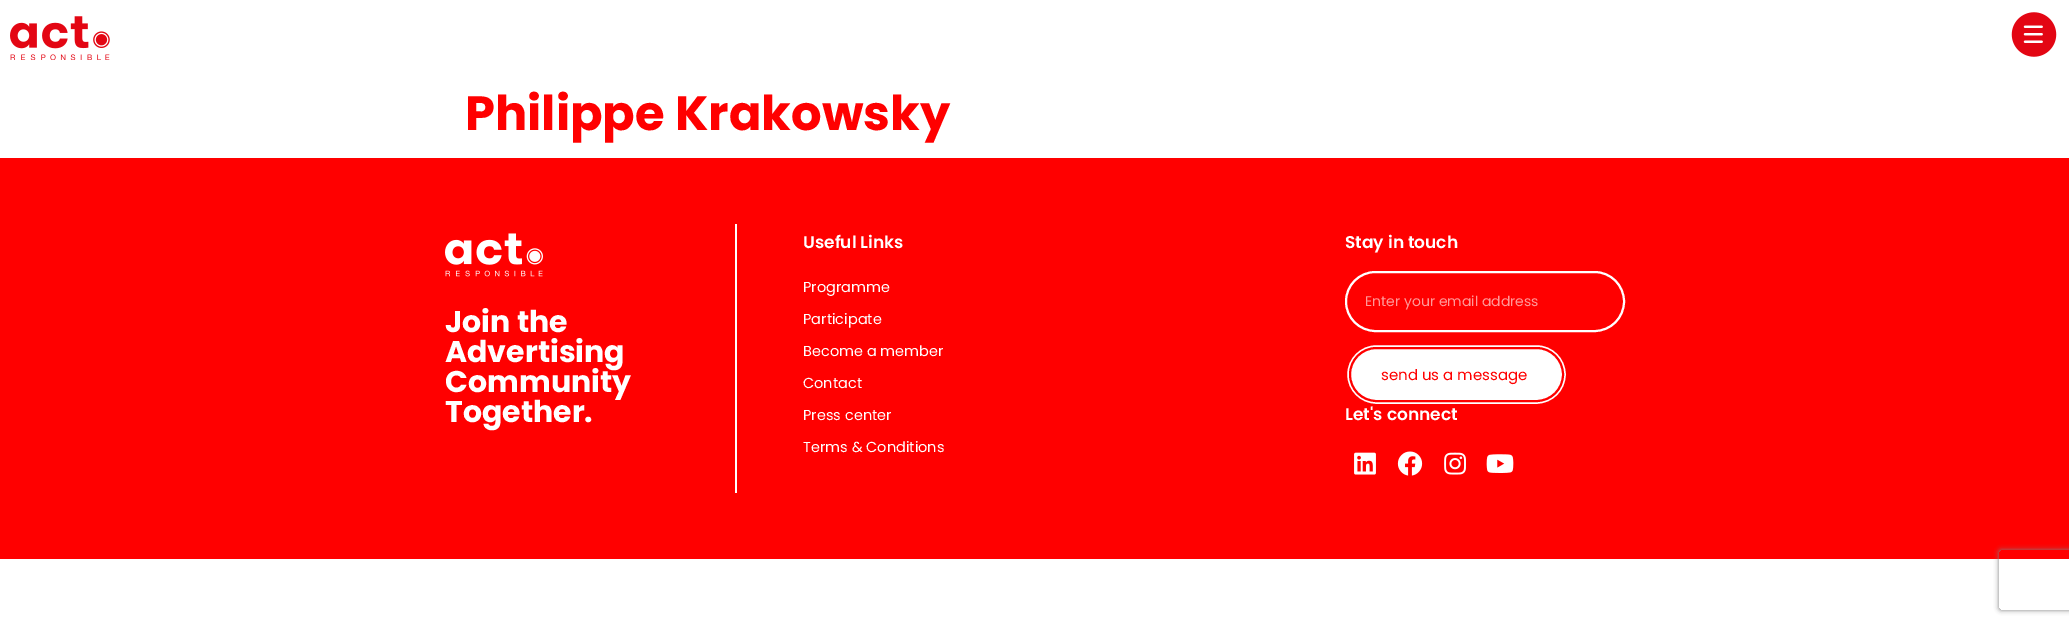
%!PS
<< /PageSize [2069 624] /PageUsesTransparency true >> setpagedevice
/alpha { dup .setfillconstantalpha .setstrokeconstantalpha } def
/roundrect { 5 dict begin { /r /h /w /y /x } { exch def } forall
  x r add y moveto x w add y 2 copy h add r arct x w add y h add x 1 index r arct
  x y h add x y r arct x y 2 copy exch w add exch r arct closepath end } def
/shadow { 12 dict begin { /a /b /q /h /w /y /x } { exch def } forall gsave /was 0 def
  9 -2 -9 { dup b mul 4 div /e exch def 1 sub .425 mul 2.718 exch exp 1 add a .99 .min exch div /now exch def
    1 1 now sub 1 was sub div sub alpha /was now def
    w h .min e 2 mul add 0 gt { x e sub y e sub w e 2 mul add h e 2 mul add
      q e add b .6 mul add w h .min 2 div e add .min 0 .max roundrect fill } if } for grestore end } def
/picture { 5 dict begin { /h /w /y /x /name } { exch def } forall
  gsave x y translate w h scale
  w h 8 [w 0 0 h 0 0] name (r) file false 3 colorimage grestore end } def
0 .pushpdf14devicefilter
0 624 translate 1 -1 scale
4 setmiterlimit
1 setgray
0 0 2069 624 rectfill
(img1.rgb) 10 16 100 44 picture
(img2.rgb) 2011 12 46 45 picture
/Poppins-Bold [48 0 0 -48 0 0] selectfont
1 0 0 setrgbcolor
465 130 moveto (Philippe Krakowsky) show
0 158 2069 401 rectfill
(img3.rgb) 445 233 98 44 picture
/Poppins-Bold [30 0 0 -30 0 0] selectfont
1 setgray
445 332 moveto (Join the) show
445 362 moveto (Advertising) show
445 392 moveto (Community) show
445 422 moveto (Together.) show
735 224 2 269 rectfill
/Poppins-SemiBold [17 0 0 -17 0 0] selectfont
803 248 moveto (Useful Links) show
/Poppins-Regular [14.5 0 0 -14.5 0 0] selectfont
803 292 moveto (Programme) show
803 324 moveto (Participate) show
803 356 moveto (Become a member) show
803 388 moveto (Contact) show
803 420 moveto (Press center) show
803 452 moveto (Terms & Conditions) show
/Poppins-SemiBold [17 0 0 -17 0 0] selectfont
1345 248 moveto (Stay in touch) show
2 setlinewidth
1346 272 278 59 29.5 roundrect stroke
/Poppins-Regular [14 0 0 -14 0 0] selectfont
1 0.6 0.6 setrgbcolor
1365 306 moveto (Enter your email address) show
1 setgray
1346 344 221 61 30.5 roundrect gsave fill grestore
1 0 0 setrgbcolor
stroke
1350 348 213 53 26.5 roundrect stroke
/Poppins-Regular [15 0 0 -15 0 0] selectfont
1381 380 moveto (send us a message) show
gsave
newpath 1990 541 moveto 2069 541 lineto 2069 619 lineto 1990 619 lineto closepath 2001 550 moveto 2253 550 lineto 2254 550 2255 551 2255 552 curveto 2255 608 lineto 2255 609 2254 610 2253 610 curveto 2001 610 lineto 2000 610 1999 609 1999 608 curveto 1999 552 lineto 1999 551 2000 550 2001 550 curveto closepath eoclip newpath
0.502 setgray
1999 550 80 60 2 2.5 1 shadow
grestore
/Poppins-SemiBold [17 0 0 -17 0 0] selectfont
1 setgray
1345 420 moveto (Let's connect) show
(img4.rgb) 1354 452 22 23 picture
(img5.rgb) 1397 451 26 25 picture
(img6.rgb) 1444 452 22 23 picture
(img7.rgb) 1486 454 28 19 picture
.poppdf14devicefilter showpage
